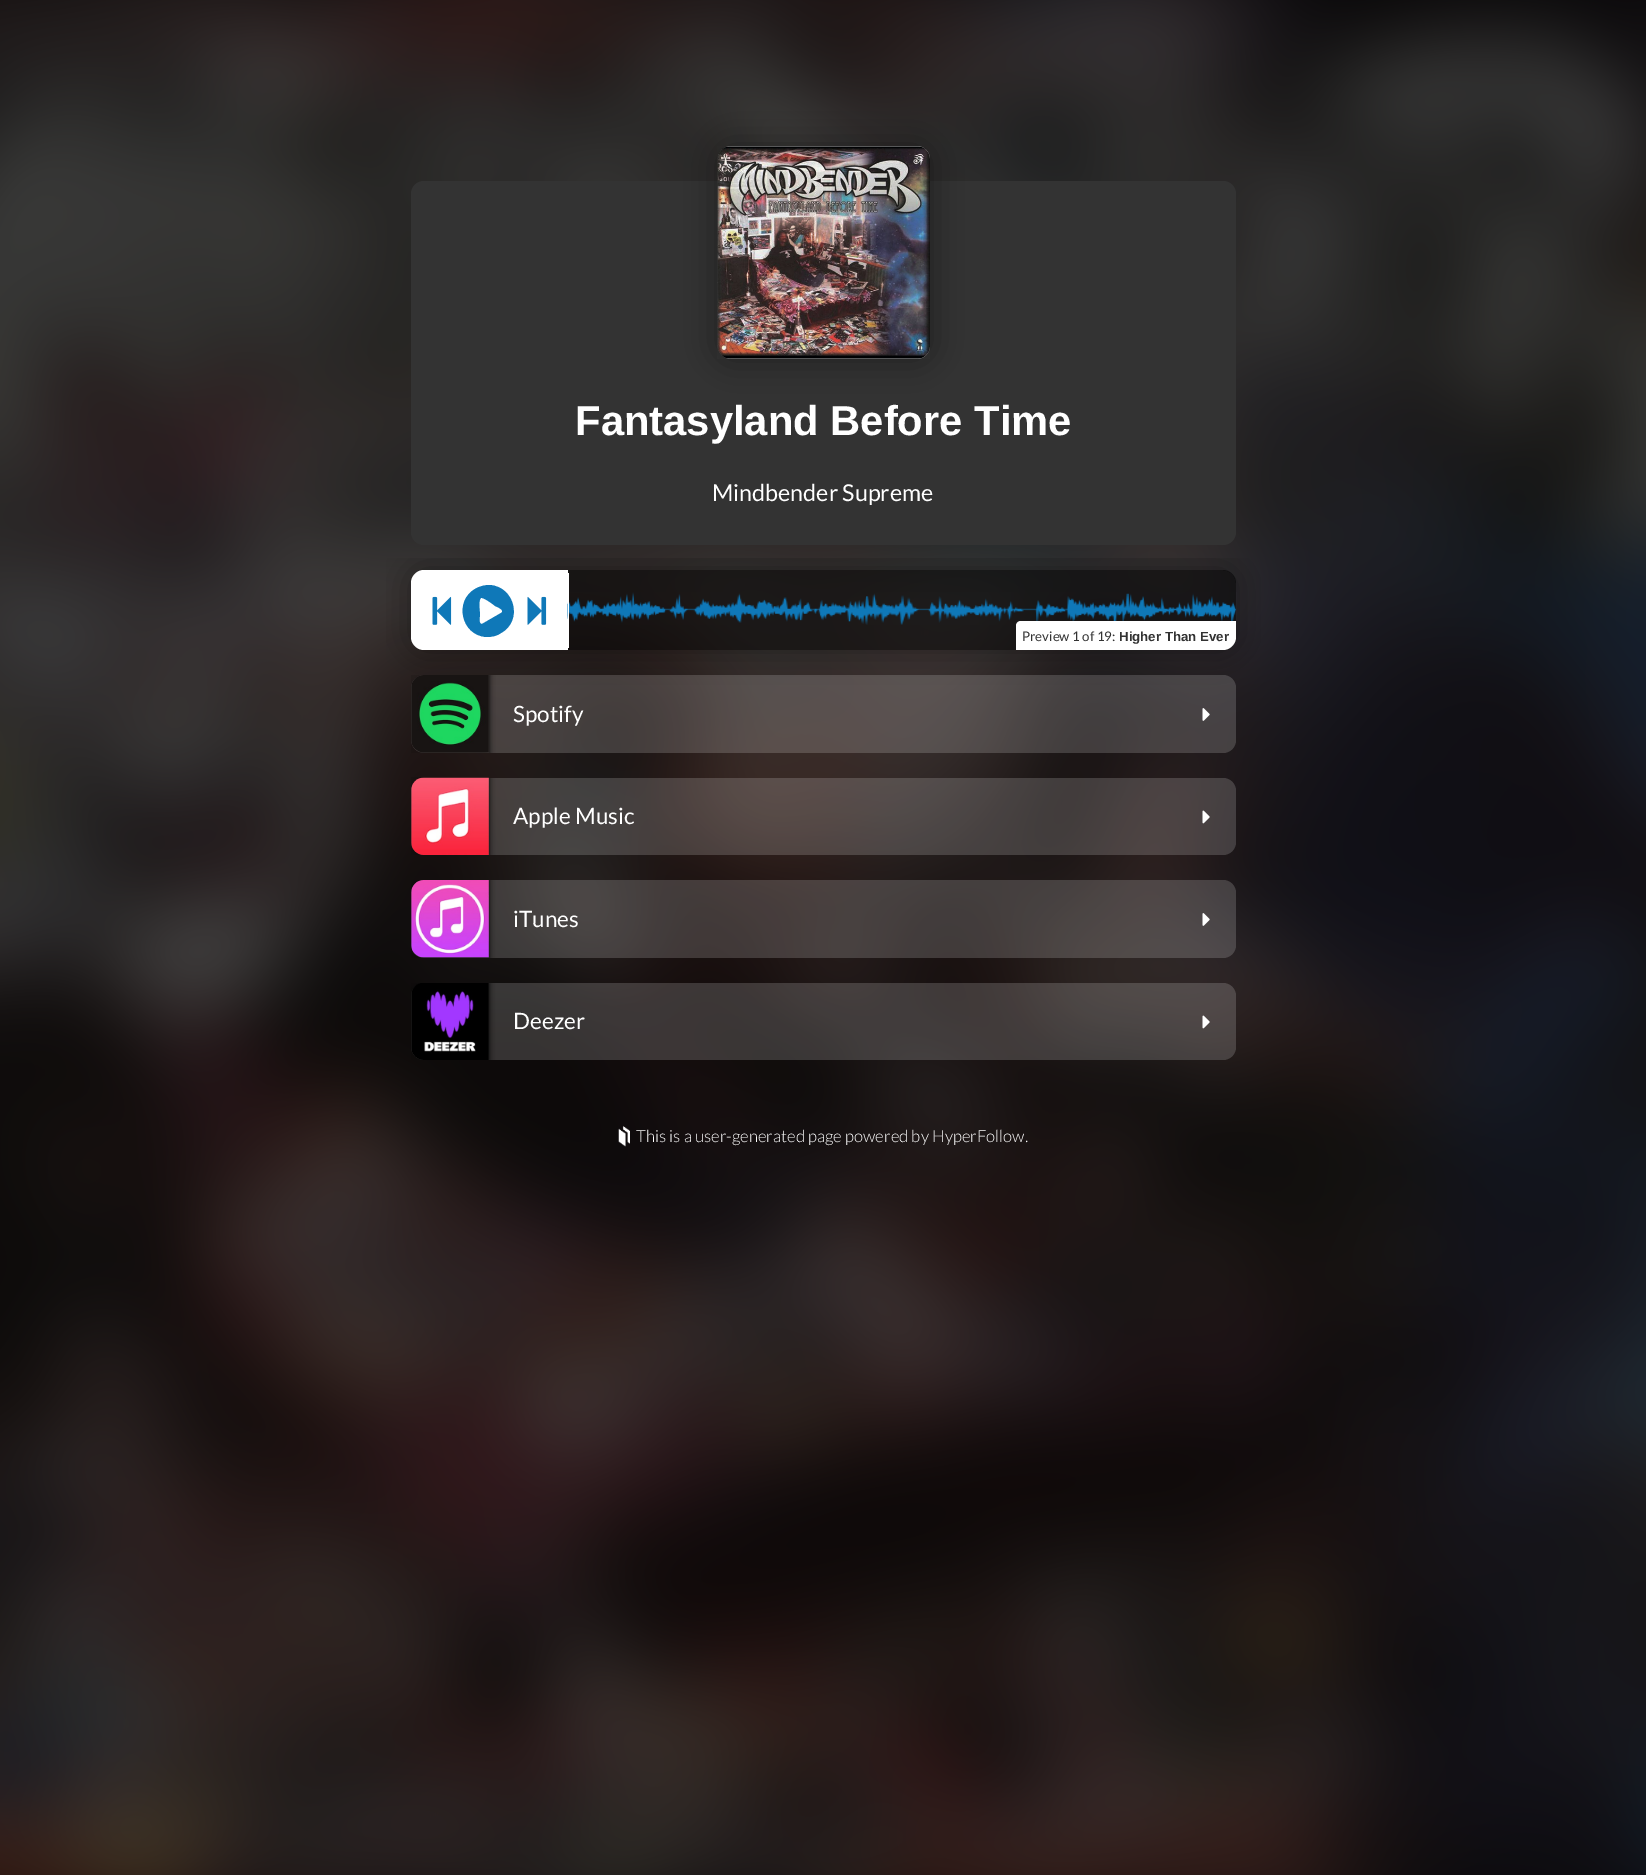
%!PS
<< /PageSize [1646 1875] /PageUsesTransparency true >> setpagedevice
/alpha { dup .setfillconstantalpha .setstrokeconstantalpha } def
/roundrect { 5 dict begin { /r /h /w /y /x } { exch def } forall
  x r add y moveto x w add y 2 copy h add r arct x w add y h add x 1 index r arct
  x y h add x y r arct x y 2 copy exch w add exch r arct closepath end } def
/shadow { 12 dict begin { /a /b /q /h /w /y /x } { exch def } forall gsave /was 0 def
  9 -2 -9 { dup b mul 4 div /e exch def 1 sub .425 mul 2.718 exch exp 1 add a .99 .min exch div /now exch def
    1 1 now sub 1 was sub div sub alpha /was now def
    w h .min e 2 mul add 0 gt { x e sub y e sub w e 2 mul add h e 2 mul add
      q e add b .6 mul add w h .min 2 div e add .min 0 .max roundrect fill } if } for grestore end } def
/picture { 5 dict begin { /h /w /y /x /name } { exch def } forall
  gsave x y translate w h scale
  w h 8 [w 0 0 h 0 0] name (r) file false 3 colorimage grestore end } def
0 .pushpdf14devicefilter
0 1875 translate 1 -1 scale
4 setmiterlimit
0 setgray
0 0 1646 1875 rectfill
(img1.rgb) 0 0 1646 1875 picture
0.2 setgray
411 181 825 364 13 roundrect fill
0 setgray
718 146 212 213 13 15.5 0.35 shadow
0.8 setgray
718 146 212 213 13 roundrect fill
(img2.rgb) 717 146 213 213 picture
/LiberationSans-Bold [41.75 0 0 -41.75 0 0] selectfont
1 setgray
575 435 moveto (Fantasyland Before Time) show
/Lato-Regular [23.25 0 0 -23.25 0 0] selectfont
712 501 moveto (Mindbender Supreme) show
0.17 alpha
411 675 825 78 13 roundrect fill
gsave
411 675 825 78 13 roundrect clip newpath
1 alpha
0 setgray
411 675 78 78 0 3 1 shadow
grestore
1 alpha
(img6.rgb) 411 675 78 78 picture
gsave
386 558 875 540 rectclip
newpath 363 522 moveto 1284 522 lineto 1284 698 lineto 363 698 lineto closepath 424 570 moveto 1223 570 lineto 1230 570 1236 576 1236 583 curveto 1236 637 lineto 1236 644 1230 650 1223 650 curveto 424 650 lineto 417 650 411 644 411 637 curveto 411 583 lineto 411 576 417 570 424 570 curveto closepath eoclip newpath
0 setgray
411 570 825 80 13 15.5 0.35 shadow
grestore
newpath 424 570 moveto 568 570 lineto 568 650 lineto 424 650 lineto 417 650 411 644 411 637 curveto 411 583 lineto 411 576 417 570 424 570 curveto closepath fill
(img3.rgb) 432 596 20 29 picture
0.059 0.471 0.722 setrgbcolor
newpath 475 589 moveto 480 586 485 585 490 585 curveto 515 587 523 621 501 633 curveto 497 636 492 637 486 637 curveto 461 635 454 601 475 589 curveto closepath 501 613 moveto 506 610 495 606 495 606 curveto 493 604 483 597 481 598 curveto 478 600 480 612 480 615 curveto 480 616 478 624 482 624 curveto closepath fill
(img4.rgb) 527 596 20 29 picture
0.5 alpha
0 setgray
newpath 568 570 moveto 1223 570 lineto 1230 570 1236 576 1236 583 curveto 1236 637 lineto 1236 644 1230 650 1223 650 curveto 568 650 lineto closepath fill
1 alpha
(img5.rgb) 567 592 670 33 picture
1 setgray
568 573 1 75 rectfill
newpath 1021 621 moveto 1236 621 lineto 1236 637 lineto 1236 644 1230 650 1223 650 curveto 1016 650 lineto 1016 626 lineto 1016 623 1018 621 1021 621 curveto closepath fill
/Lato-Regular [13.25 0 0 -13.25 0 0] selectfont
0.2 setgray
1022 641 moveto (Preview 1 of 19:) show
/LiberationSans-Bold [13.25 0 0 -13.25 0 0] selectfont
1119 641 moveto (Higher Than Ever) show
/Lato-Regular [22.5 0 0 -22.5 0 0] selectfont
1 setgray
513 722 moveto (Spotify) show
(img7.rgb) 1202 708 8 13 picture
0.17 alpha
411 778 825 77 13 roundrect fill
gsave
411 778 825 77 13 roundrect clip newpath
1 alpha
0 setgray
411 778 78 77 0 3 1 shadow
grestore
1 alpha
(img8.rgb) 411 777 78 78 picture
513 824 moveto (Apple Music) show
(img9.rgb) 1202 810 8 14 picture
0.17 alpha
411 880 825 78 13 roundrect fill
gsave
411 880 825 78 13 roundrect clip newpath
1 alpha
0 setgray
411 880 78 78 0 3 1 shadow
grestore
1 alpha
(img10.rgb) 411 880 78 78 picture
513 927 moveto (iTunes) show
(img11.rgb) 1202 913 8 13 picture
0.17 alpha
411 983 825 77 13 roundrect fill
gsave
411 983 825 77 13 roundrect clip newpath
1 alpha
0 setgray
411 983 78 77 0 3 1 shadow
grestore
1 alpha
(img12.rgb) 411 983 78 77 picture
513 1029 moveto (Deezer) show
(img13.rgb) 1202 1015 8 14 picture
(img14.rgb) 618 1126 12 21 picture
/Lato-Light [16.7 0 0 -16.7 0 0] selectfont
636 1142 moveto (This is a user-generated page powered by HyperFollow.) show
.poppdf14devicefilter showpage
